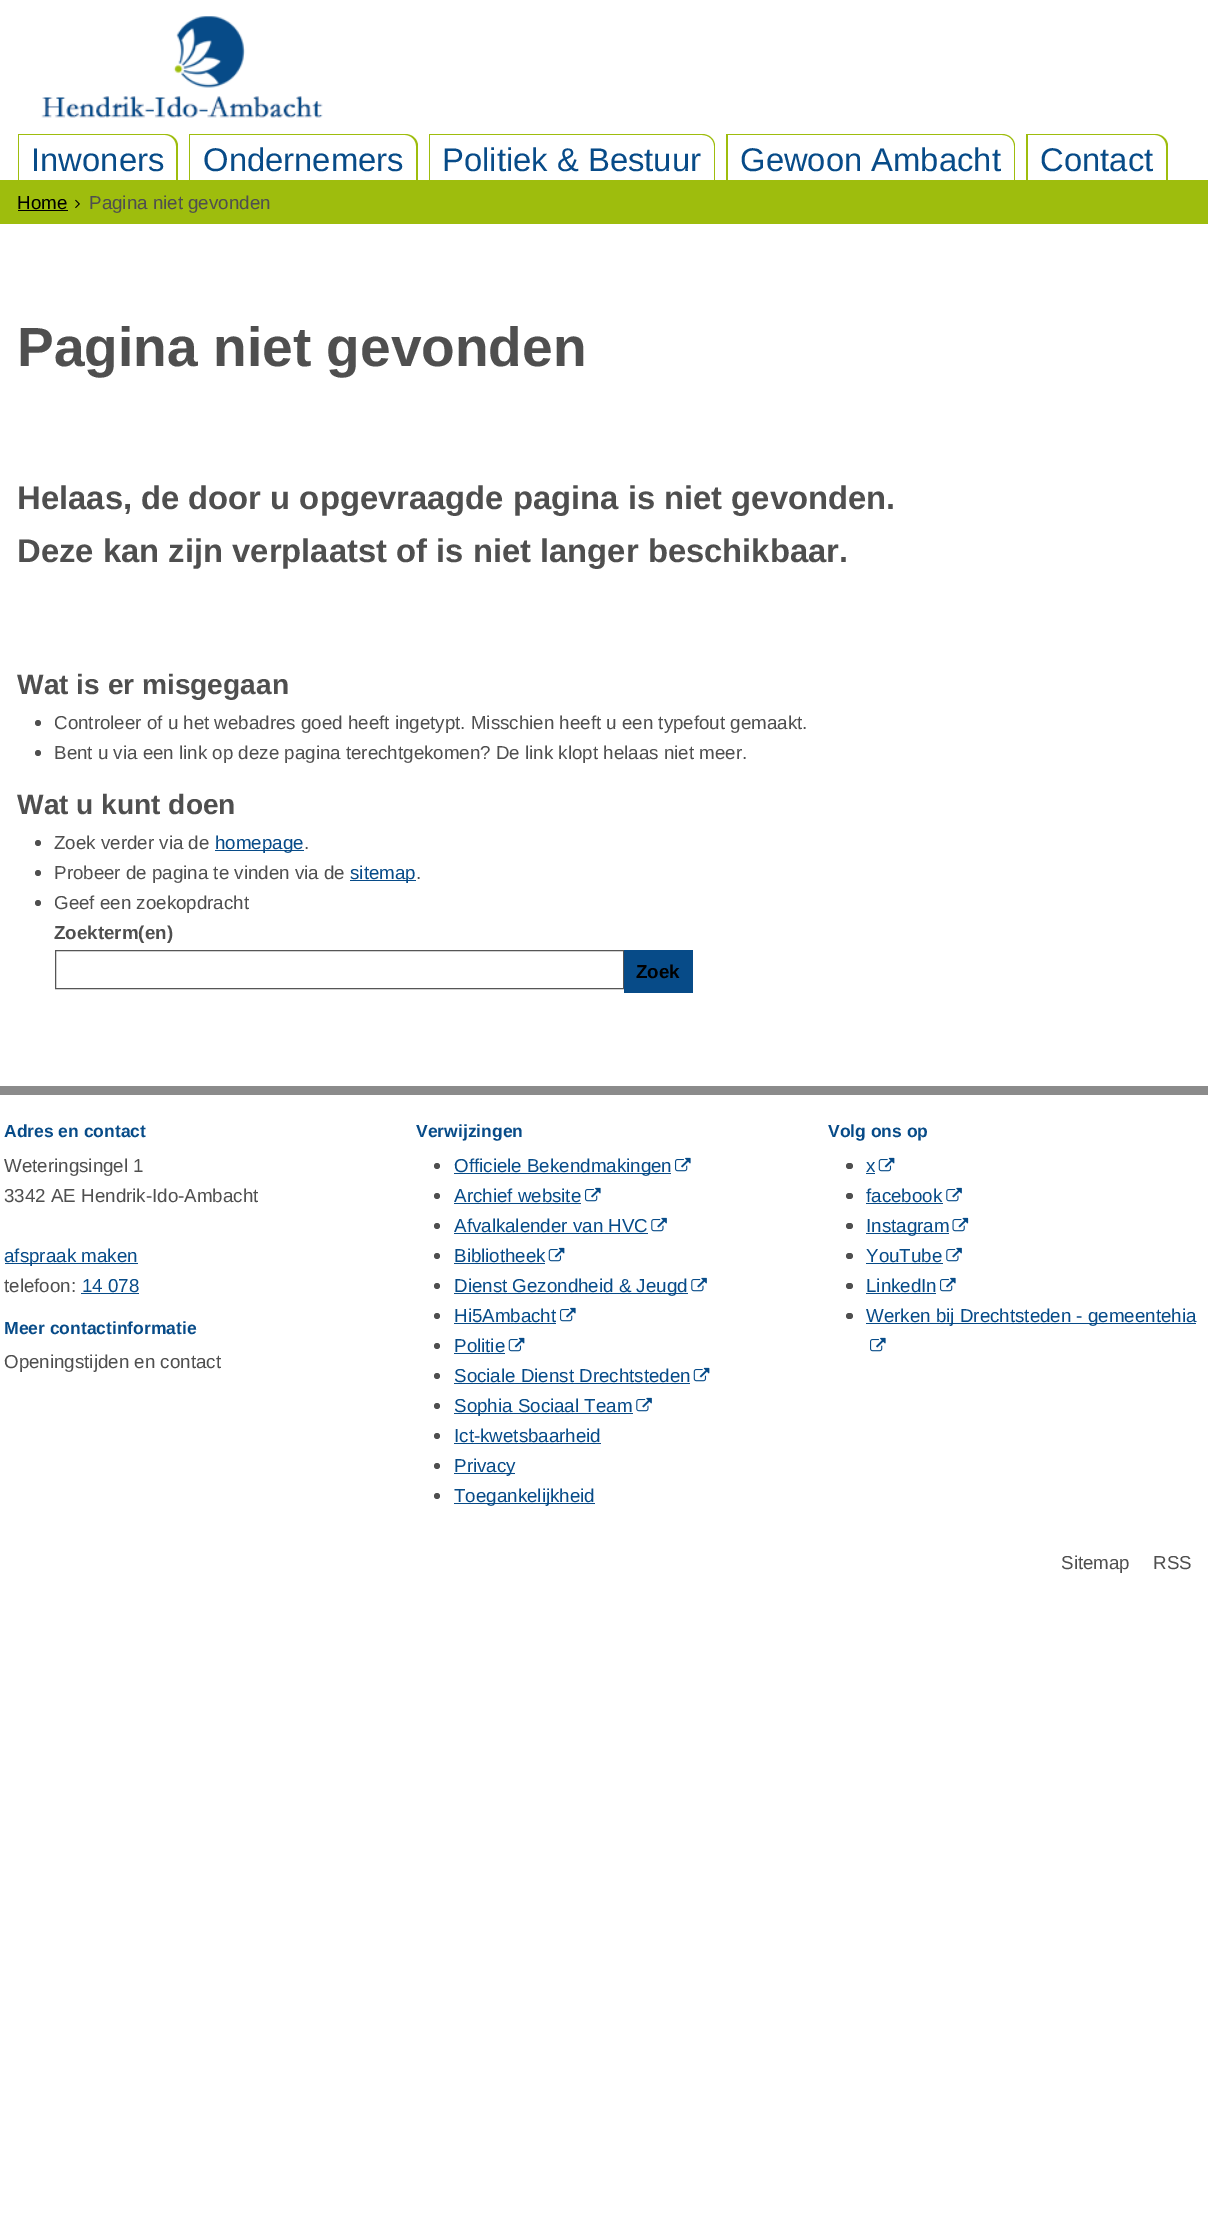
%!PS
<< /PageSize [1208 2226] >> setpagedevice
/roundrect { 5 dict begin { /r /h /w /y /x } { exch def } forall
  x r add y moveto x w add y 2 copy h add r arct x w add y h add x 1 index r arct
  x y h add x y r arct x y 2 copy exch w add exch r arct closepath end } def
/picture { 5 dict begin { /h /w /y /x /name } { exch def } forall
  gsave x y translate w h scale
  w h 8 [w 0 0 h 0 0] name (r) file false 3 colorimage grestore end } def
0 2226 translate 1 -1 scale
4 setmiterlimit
1 setgray
0 0 1208 2226 rectfill
(img1.rgb) 41 16 282 102 picture
0.62 0.741 0.051 setrgbcolor
newpath 18 134 moveto 165 134 lineto 172 134 178 139 178 146 curveto 178 180 lineto 18 180 lineto closepath 19 135 moveto 165 135 lineto 171 135 176 140 176 146 curveto 176 180 lineto 19 180 lineto closepath eofill
/LiberationSans-Regular [32.8 0 0 -32.8 0 0] selectfont
0.027 0.294 0.533 setrgbcolor
31 171 moveto (Inwoners) show
0.62 0.741 0.051 setrgbcolor
newpath 189 134 moveto 405 134 lineto 412 134 418 139 418 146 curveto 418 180 lineto 189 180 lineto closepath 190 135 moveto 405 135 lineto 411 135 416 140 416 146 curveto 416 180 lineto 190 180 lineto closepath eofill
0.027 0.294 0.533 setrgbcolor
203 171 moveto (Ondernemers) show
0.62 0.741 0.051 setrgbcolor
newpath 429 134 moveto 702 134 lineto 709 134 715 139 715 146 curveto 715 180 lineto 429 180 lineto closepath 430 135 moveto 702 135 lineto 709 135 714 140 714 146 curveto 714 180 lineto 430 180 lineto closepath eofill
0.027 0.294 0.533 setrgbcolor
442 171 moveto (Politiek & Bestuur) show
0.62 0.741 0.051 setrgbcolor
newpath 726 134 moveto 1002 134 lineto 1009 134 1015 139 1015 146 curveto 1015 180 lineto 726 180 lineto closepath 728 135 moveto 1002 135 lineto 1009 135 1014 140 1014 146 curveto 1014 180 lineto 728 180 lineto closepath eofill
0.027 0.294 0.533 setrgbcolor
740 171 moveto (Gewoon Ambacht) show
0.62 0.741 0.051 setrgbcolor
newpath 1026 134 moveto 1155 134 lineto 1162 134 1168 139 1168 146 curveto 1168 180 lineto 1026 180 lineto closepath 1028 135 moveto 1155 135 lineto 1161 135 1166 140 1166 146 curveto 1166 180 lineto 1028 180 lineto closepath eofill
0.027 0.294 0.533 setrgbcolor
1040 171 moveto (Contact) show
0.62 0.741 0.051 setrgbcolor
0 180 1208 44 rectfill
/LiberationSans-Regular [18.75 0 0 -18.75 0 0] selectfont
0 setgray
17 209 moveto (Home) show
18 210 50 1 rectfill
(img2.rgb) 75 199 5 10 picture
0.31 setgray
89 209 moveto (Pagina niet gevonden) show
/LiberationSans-Bold [55.1 0 0 -55.1 0 0] selectfont
17 366 moveto (Pagina niet gevonden) show
/LiberationSans-Bold [32.8 0 0 -32.8 0 0] selectfont
17 509 moveto (Helaas, de door u opgevraagde pagina is niet gevonden.) show
17 562 moveto (Deze kan zijn verplaatst of is niet langer beschikbaar.) show
/LiberationSans-Bold [28.1 0 0 -28.1 0 0] selectfont
17 694 moveto (Wat is er misgegaan) show
newpath 38 723 3 0 360 arc closepath fill
/LiberationSans-Regular [18.75 0 0 -18.75 0 0] selectfont
54 729 moveto (Controleer of u het webadres goed heeft ingetypt. Misschien heeft u een typefout gemaakt.) show
newpath 38 753 3 0 360 arc closepath fill
54 759 moveto (Bent u via een link op deze pagina terechtgekomen? De link klopt helaas niet meer.) show
/LiberationSans-Bold [28.1 0 0 -28.1 0 0] selectfont
17 814 moveto (Wat u kunt doen) show
newpath 38 843 3 0 360 arc closepath fill
/LiberationSans-Regular [18.75 0 0 -18.75 0 0] selectfont
54 849 moveto (Zoek verder via de) show
0.027 0.294 0.533 setrgbcolor
215 850 89 1 rectfill
215 849 moveto (homepage) show
0.31 setgray
304 849 moveto (.) show
newpath 38 873 3 0 360 arc closepath fill
54 879 moveto (Probeer de pagina te vinden via de) show
0.027 0.294 0.533 setrgbcolor
350 880 66 1 rectfill
350 879 moveto (sitemap) show
0.31 setgray
416 879 moveto (.) show
newpath 38 903 3 0 360 arc closepath fill
54 909 moveto (Geef een zoekopdracht) show
/LiberationSans-Bold [18.75 0 0 -18.75 0 0] selectfont
54 939 moveto (Zoekterm\(en\)) show
0.333 setgray
55.5 950.5 568 38 rectstroke
0.027 0.294 0.533 setrgbcolor
624 950 69 43 rectfill
0 setgray
636 978 moveto (Zoek) show
0.545 setgray
0 1086 1208 9 rectfill
/LiberationSans-Bold [17.5 0 0 -17.5 0 0] selectfont
0.027 0.294 0.533 setrgbcolor
4 1137 moveto (Adres en contact) show
/LiberationSans-Regular [18.75 0 0 -18.75 0 0] selectfont
0.31 setgray
4 1172 moveto (Weteringsingel 1) show
4 1202 moveto (3342 AE Hendrik-Ido-Ambacht) show
0.027 0.294 0.533 setrgbcolor
5 1263 133 1 rectfill
4 1262 moveto (afspraak maken) show
0.31 setgray
4 1292 moveto (telefoon:) show
0.027 0.294 0.533 setrgbcolor
82 1292 moveto (14 078) show
81 1293 58 1 rectfill
/LiberationSans-Bold [17.5 0 0 -17.5 0 0] selectfont
4 1334 moveto (Meer contactinformatie) show
/LiberationSans-Regular [18.75 0 0 -18.75 0 0] selectfont
0.31 setgray
4 1368 moveto (Openingstijden en contact) show
/LiberationSans-Bold [17.5 0 0 -17.5 0 0] selectfont
0.027 0.294 0.533 setrgbcolor
416 1137 moveto (Verwijzingen) show
0.31 setgray
newpath 437 1166 3 0 360 arc closepath fill
0.027 0.294 0.533 setrgbcolor
454 1173 217 1 rectfill
/LiberationSans-Regular [18.75 0 0 -18.75 0 0] selectfont
454 1172 moveto (Officiele Bekendmakingen) show
(img3.rgb) 675 1157 16 15 picture
0.31 setgray
newpath 437 1196 3 0 360 arc closepath fill
0.027 0.294 0.533 setrgbcolor
454 1202 moveto (Archief website) show
454 1203 127 1 rectfill
(img3.rgb) 585 1187 16 15 picture
0.31 setgray
newpath 437 1226 3 0 360 arc closepath fill
0.027 0.294 0.533 setrgbcolor
454 1232 moveto (Afvalkalender van HVC) show
454 1233 194 1 rectfill
(img4.rgb) 651 1217 16 15 picture
0.31 setgray
newpath 437 1256 3 0 360 arc closepath fill
0.027 0.294 0.533 setrgbcolor
454 1262 moveto (Bibliotheek) show
454 1263 91 1 rectfill
(img5.rgb) 548 1247 17 15 picture
0.31 setgray
newpath 437 1286 3 0 360 arc closepath fill
0.027 0.294 0.533 setrgbcolor
454 1293 234 1 rectfill
454 1292 moveto (Dienst Gezondheid & Jeugd) show
(img4.rgb) 691 1277 16 15 picture
0.31 setgray
newpath 437 1316 3 0 360 arc closepath fill
0.027 0.294 0.533 setrgbcolor
454 1322 moveto (Hi5Ambacht) show
454 1323 102 1 rectfill
(img3.rgb) 560 1307 16 15 picture
0.31 setgray
newpath 437 1346 3 0 360 arc closepath fill
0.027 0.294 0.533 setrgbcolor
454 1352 moveto (Politie) show
454 1353 51 1 rectfill
(img5.rgb) 508 1337 17 15 picture
0.31 setgray
newpath 437 1376 3 0 360 arc closepath fill
0.027 0.294 0.533 setrgbcolor
454 1382 moveto (Sociale Dienst Drechtsteden) show
454 1383 236 1 rectfill
(img5.rgb) 693 1367 17 15 picture
0.31 setgray
newpath 437 1406 3 0 360 arc closepath fill
0.027 0.294 0.533 setrgbcolor
454 1413 179 1 rectfill
454 1412 moveto (Sophia Sociaal Team) show
(img4.rgb) 636 1397 16 15 picture
0.31 setgray
newpath 437 1436 3 0 360 arc closepath fill
0.027 0.294 0.533 setrgbcolor
454 1442 moveto (Ict-kwetsbaarheid) show
454 1443 147 1 rectfill
0.31 setgray
newpath 437 1466 3 0 360 arc closepath fill
0.027 0.294 0.533 setrgbcolor
454 1473 61 1 rectfill
454 1472 moveto (Privacy) show
0.31 setgray
newpath 437 1496 3 0 360 arc closepath fill
0.027 0.294 0.533 setrgbcolor
454 1503 141 1 rectfill
454 1502 moveto (Toegankelijkheid) show
/LiberationSans-Bold [17.5 0 0 -17.5 0 0] selectfont
828 1137 moveto (Volg ons op) show
0.31 setgray
846 1163 7 6 3 roundrect fill
/LiberationSans-Regular [18.75 0 0 -18.75 0 0] selectfont
0.027 0.294 0.533 setrgbcolor
866 1172 moveto (x) show
866 1173 9 1 rectfill
(img5.rgb) 878 1157 17 15 picture
0.31 setgray
846 1193 7 6 3 roundrect fill
0.027 0.294 0.533 setrgbcolor
866 1202 moveto (facebook) show
866 1203 77 1 rectfill
(img4.rgb) 946 1187 16 15 picture
0.31 setgray
846 1223 7 6 3 roundrect fill
0.027 0.294 0.533 setrgbcolor
866 1233 83 1 rectfill
866 1232 moveto (Instagram) show
(img6.rgb) 952 1217 17 15 picture
0.31 setgray
846 1253 7 6 3 roundrect fill
0.027 0.294 0.533 setrgbcolor
866 1262 moveto (YouTube) show
866 1263 77 1 rectfill
(img4.rgb) 946 1247 16 15 picture
0.31 setgray
846 1283 7 6 3 roundrect fill
0.027 0.294 0.533 setrgbcolor
866 1292 moveto (LinkedIn) show
866 1293 70 1 rectfill
(img3.rgb) 940 1277 16 15 picture
0.31 setgray
846 1313 7 6 3 roundrect fill
0.027 0.294 0.533 setrgbcolor
866 1323 330 1 rectfill
866 1322 moveto (Werken bij Drechtsteden - gemeentehia) show
(img3.rgb) 870 1337 16 15 picture
0.31 setgray
1061 1569 moveto (Sitemap) show
1153 1569 moveto (RSS) show
showpage
